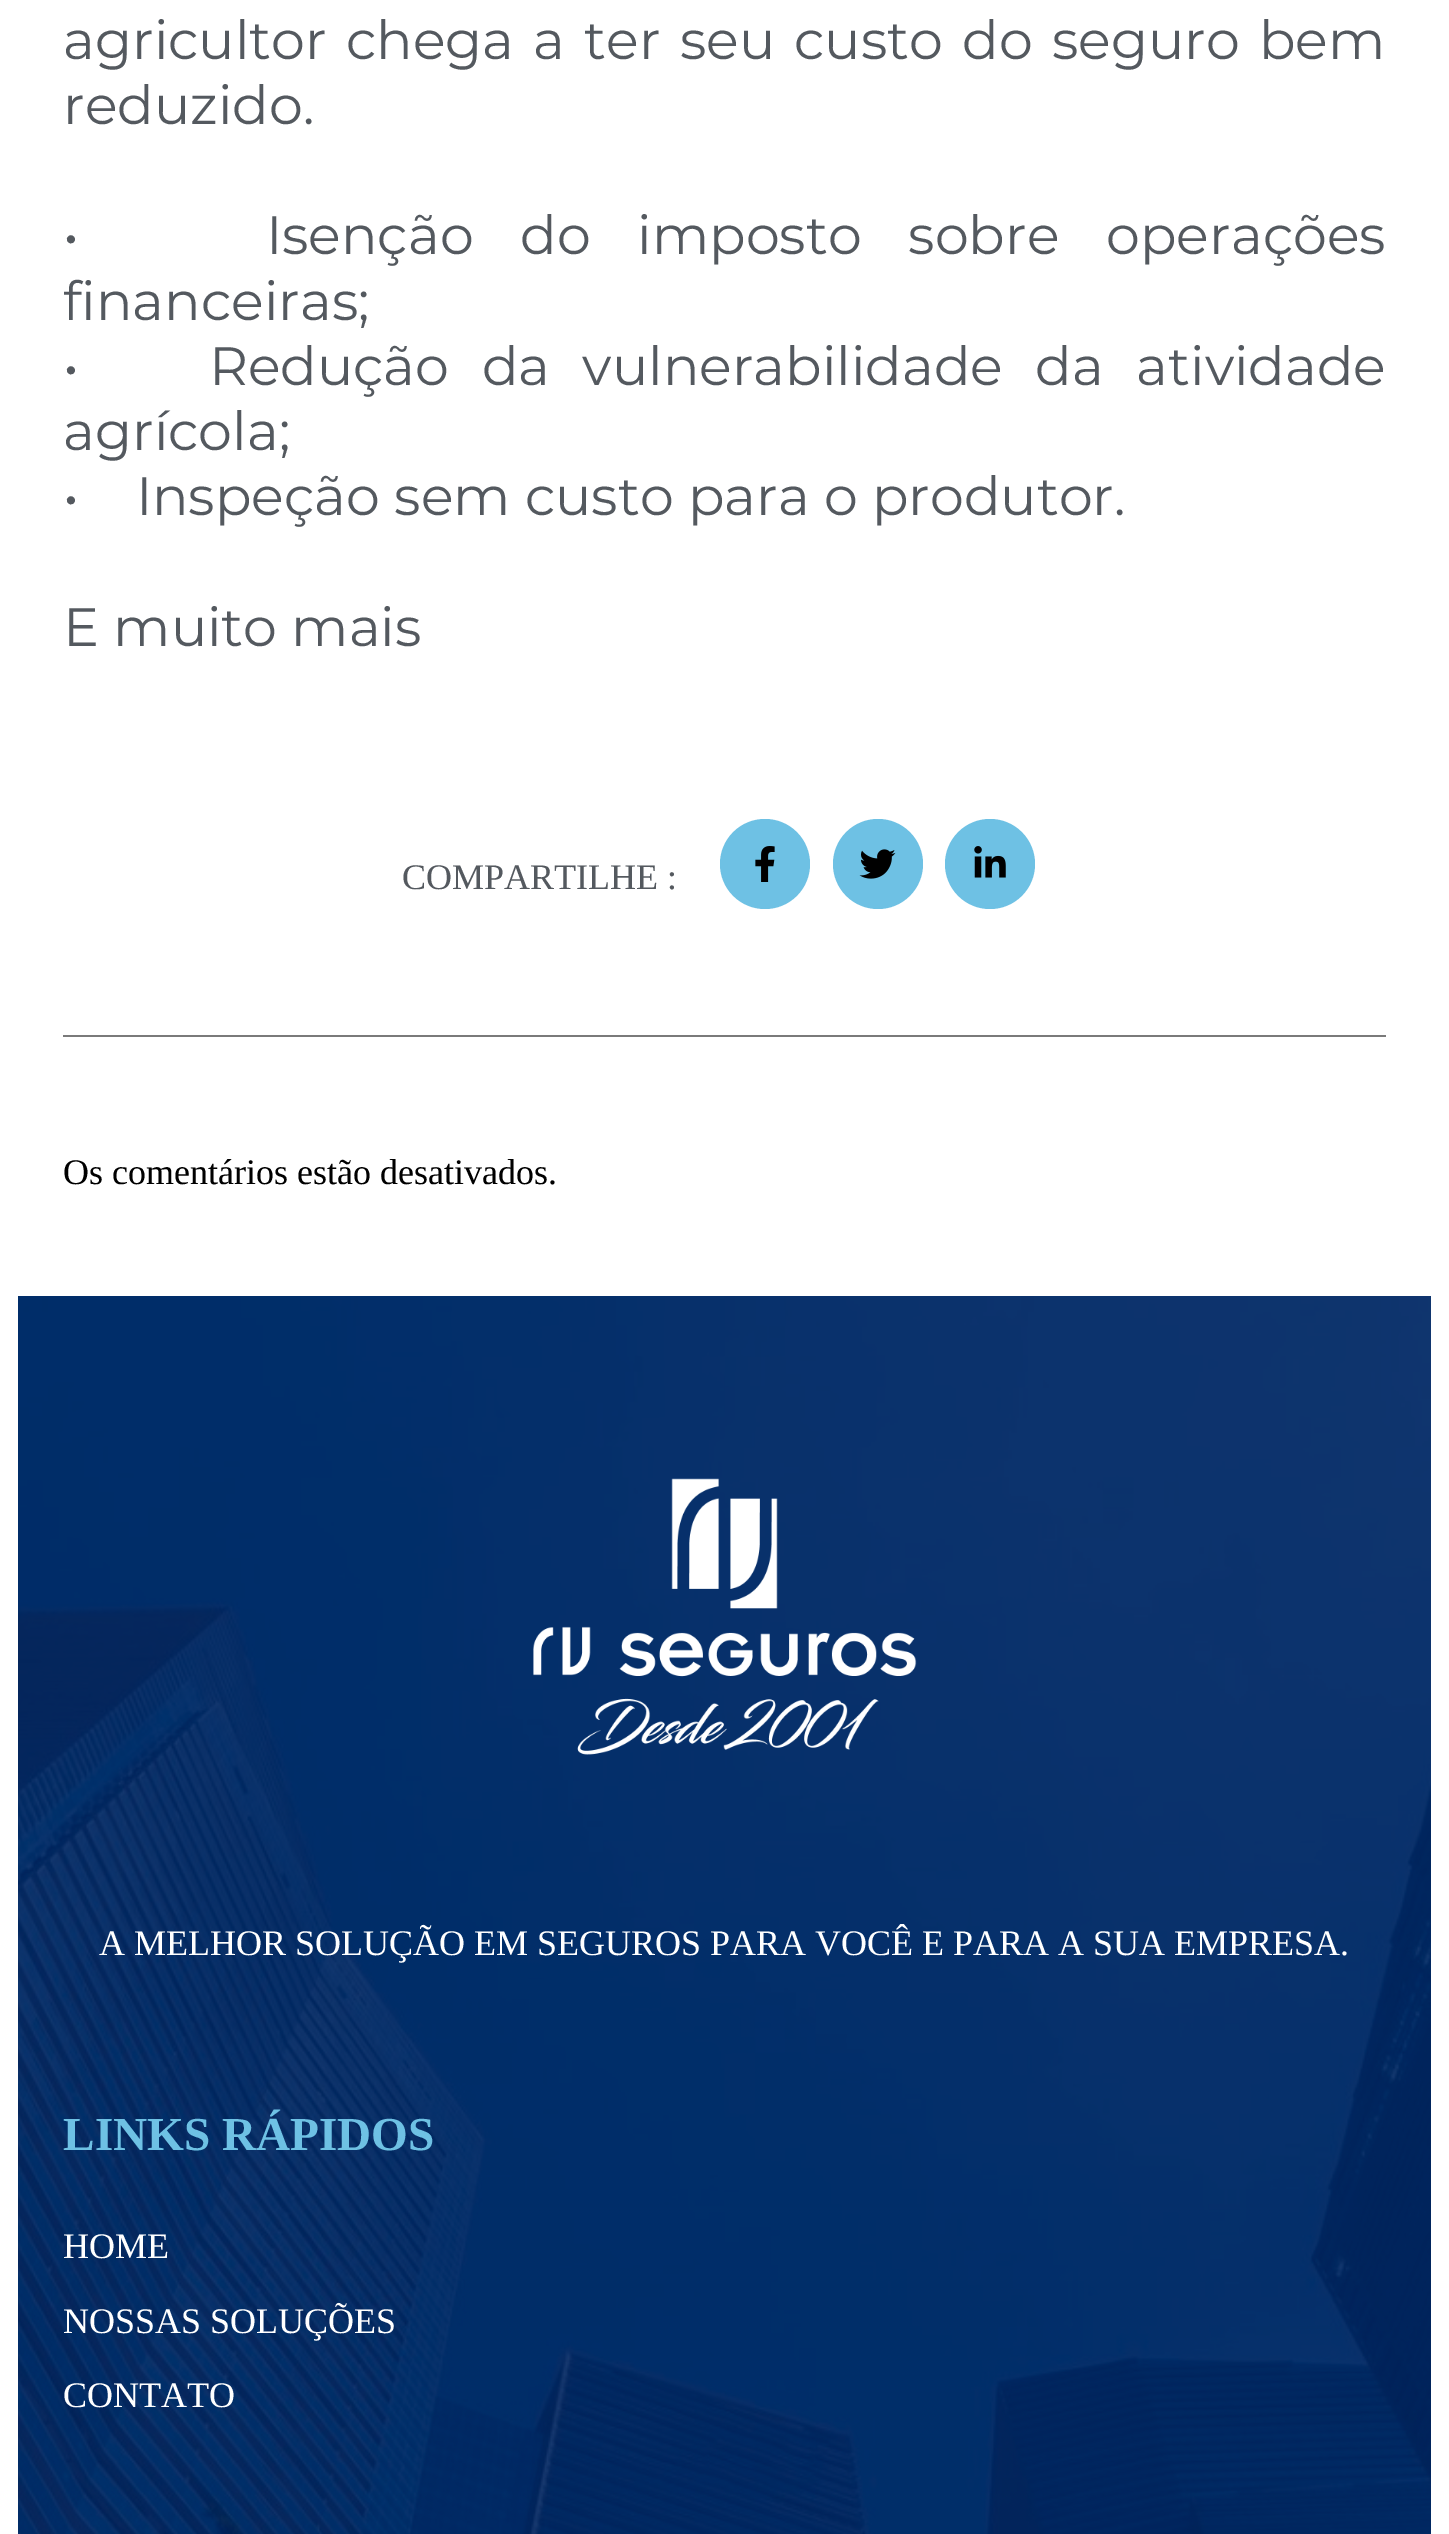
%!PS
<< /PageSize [1449 2534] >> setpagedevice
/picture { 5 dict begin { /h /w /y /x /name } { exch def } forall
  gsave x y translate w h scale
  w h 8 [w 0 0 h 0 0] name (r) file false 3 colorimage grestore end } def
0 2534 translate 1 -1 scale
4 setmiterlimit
1 setgray
0 0 1449 2534 rectfill
/Montserrat-Regular [54 0 0 -54 0 0] selectfont
0.329 0.349 0.373 setrgbcolor
63 59 moveto 5 0 32 (agricultor chega a ter seu custo do seguro bem) widthshow
63 124 moveto (reduzido.) show
63 254 moveto 32.5 0 32 (•    Isenção do imposto sobre operações) widthshow
63 320 moveto (financeiras;) show
63 385 moveto 18.25 0 32 (•    Redução da vulnerabilidade da atividade) widthshow
63 450 moveto (agrícola;) show
63 515 moveto (•    Inspeção sem custo para o produtor.) show
63 646 moveto (E muito mais) show
/LiberationSerif-Regular [36 0 0 -36 0 0] selectfont
402 889 moveto (COMPARTILHE :) show
0.431 0.757 0.894 setrgbcolor
newpath 765 864 45 0 360 arc closepath fill
(img1.rgb) 755 846 20 36 picture
newpath 878 864 45 0 360 arc closepath fill
(img2.rgb) 859 849 37 30 picture
newpath 990 864 45 0 360 arc closepath fill
(img3.rgb) 974 846 32 32 picture
0.478 setgray
63 1035 1323 2 rectfill
0 setgray
63 1184 moveto (Os comentários estão desativados.) show
(img4.rgb) 18 1296 1413 1238 picture
(img5.rgb) 533 1478 384 277 picture
1 setgray
99 1955 moveto (A MELHOR SOLUÇÃO EM SEGUROS PARA VOCÊ E PARA A SUA EMPRESA.) show
/LiberationSerif-Bold [47.25 0 0 -47.25 0 0] selectfont
0.431 0.757 0.894 setrgbcolor
63 2150 moveto (LINKS RÁPIDOS) show
/LiberationSerif-Regular [36 0 0 -36 0 0] selectfont
1 setgray
63 2258 moveto (HOME) show
63 2333 moveto (NOSSAS SOLUÇÕES) show
63 2407 moveto (CONTATO) show
showpage
